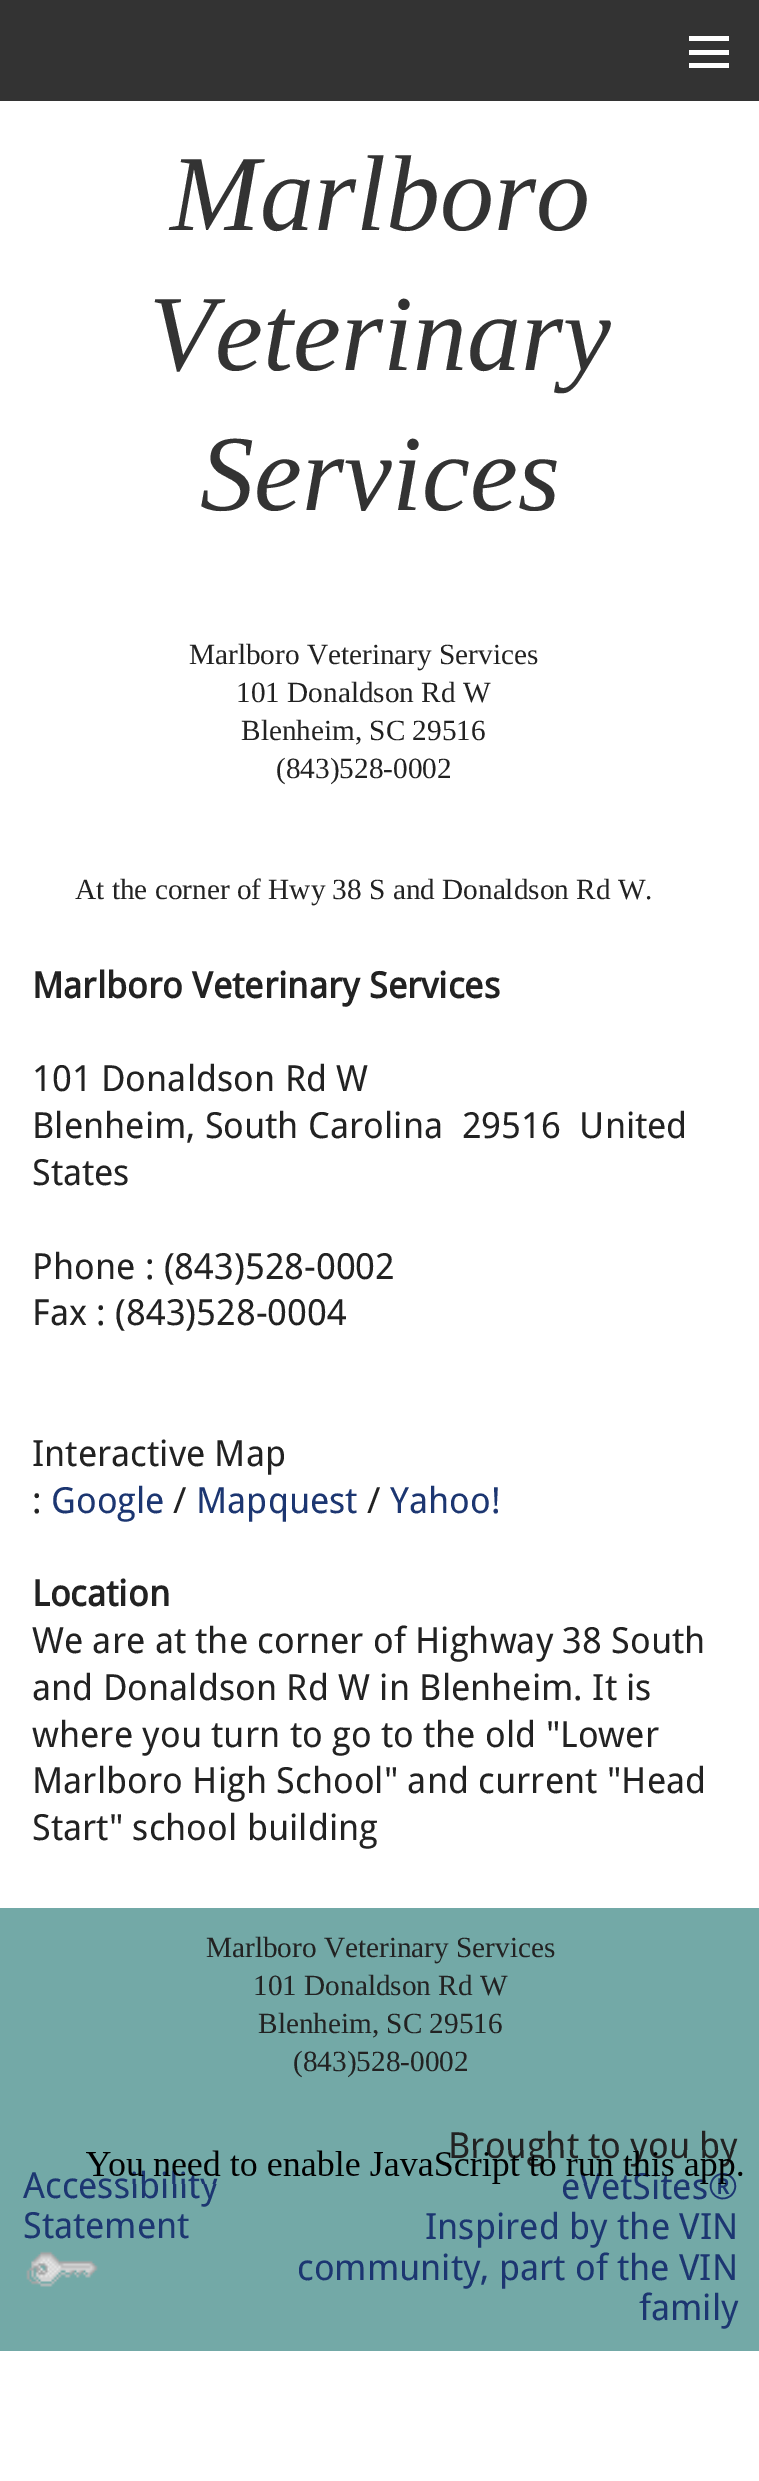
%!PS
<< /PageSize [759 2481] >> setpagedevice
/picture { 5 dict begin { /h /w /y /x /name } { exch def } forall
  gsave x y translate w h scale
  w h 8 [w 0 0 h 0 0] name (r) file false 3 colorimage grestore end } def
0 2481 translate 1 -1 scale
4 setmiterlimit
1 setgray
0 0 759 2481 rectfill
0.2 setgray
0 0 759 101 rectfill
1 setgray
689 63 40 5 rectfill
689 50 40 5 rectfill
689 36 40 5 rectfill
/LiberationSerif-Italic [108 0 0 -108 0 0] selectfont
0.2 setgray
170 230 moveto (Marlboro) show
149 370 moveto (Veterinary) show
200 510 moveto (Services) show
/LiberationSerif-Regular [29.25 0 0 -29.25 0 0] selectfont
0.133 setgray
189 664 moveto (Marlboro Veterinary Services) show
236 702 moveto (101 Donaldson Rd W) show
241 740 moveto (Blenheim, SC 29516) show
276 778 moveto (\(843\)528-0002) show
75 899 moveto (At the corner of Hwy 38 S and Donaldson Rd W.) show
/DroidSans-Bold [36 0 0 -36 0 0] selectfont
32 998 moveto (Marlboro Veterinary Services) show
/DroidSans-Regular [36 0 0 -36 0 0] selectfont
32 1091 moveto (101 Donaldson Rd W) show
32 1138 moveto (Blenheim, South Carolina  29516  United) show
32 1185 moveto (States) show
32 1279 moveto (Phone : \(843\)528-0002) show
32 1325 moveto (Fax : \(843\)528-0004) show
32 1466 moveto (Interactive Map) show
32 1513 moveto (:) show
0.11 0.212 0.443 setrgbcolor
51 1513 moveto (Google) show
0.133 setgray
173 1513 moveto (/) show
0.11 0.212 0.443 setrgbcolor
196 1513 moveto (Mapquest) show
0.133 setgray
367 1513 moveto (/) show
0.11 0.212 0.443 setrgbcolor
390 1513 moveto (Yahoo!) show
/DroidSans-Bold [36 0 0 -36 0 0] selectfont
0.133 setgray
32 1606 moveto (Location) show
/DroidSans-Regular [36 0 0 -36 0 0] selectfont
32 1653 moveto (We are at the corner of Highway 38 South) show
32 1700 moveto (and Donaldson Rd W in Blenheim. It is) show
32 1747 moveto (where you turn to go to the old "Lower) show
32 1793 moveto (Marlboro High School" and current "Head) show
32 1840 moveto (Start" school building) show
0.451 0.663 0.655 setrgbcolor
0 1908 759 443 rectfill
/LiberationSerif-Regular [29.25 0 0 -29.25 0 0] selectfont
0.133 setgray
206 1957 moveto (Marlboro Veterinary Services) show
253 1995 moveto (101 Donaldson Rd W) show
258 2033 moveto (Blenheim, SC 29516) show
293 2071 moveto (\(843\)528-0002) show
/DroidSans-Regular [36 0 0 -36 0 0] selectfont
0.11 0.212 0.443 setrgbcolor
23 2198 moveto (Accessibility) show
23 2238 moveto (Statement) show
(img1.rgb) 26 2251 72 36 picture
0.133 setgray
448 2158 moveto (Brought to you by) show
0.11 0.212 0.443 setrgbcolor
561 2199 moveto (eVetSites®) show
425 2239 moveto (Inspired by the VIN) show
297 2280 moveto (community, part of the VIN) show
639 2320 moveto (family) show
(img2.rgb) 86 2150 657 34 picture
showpage
